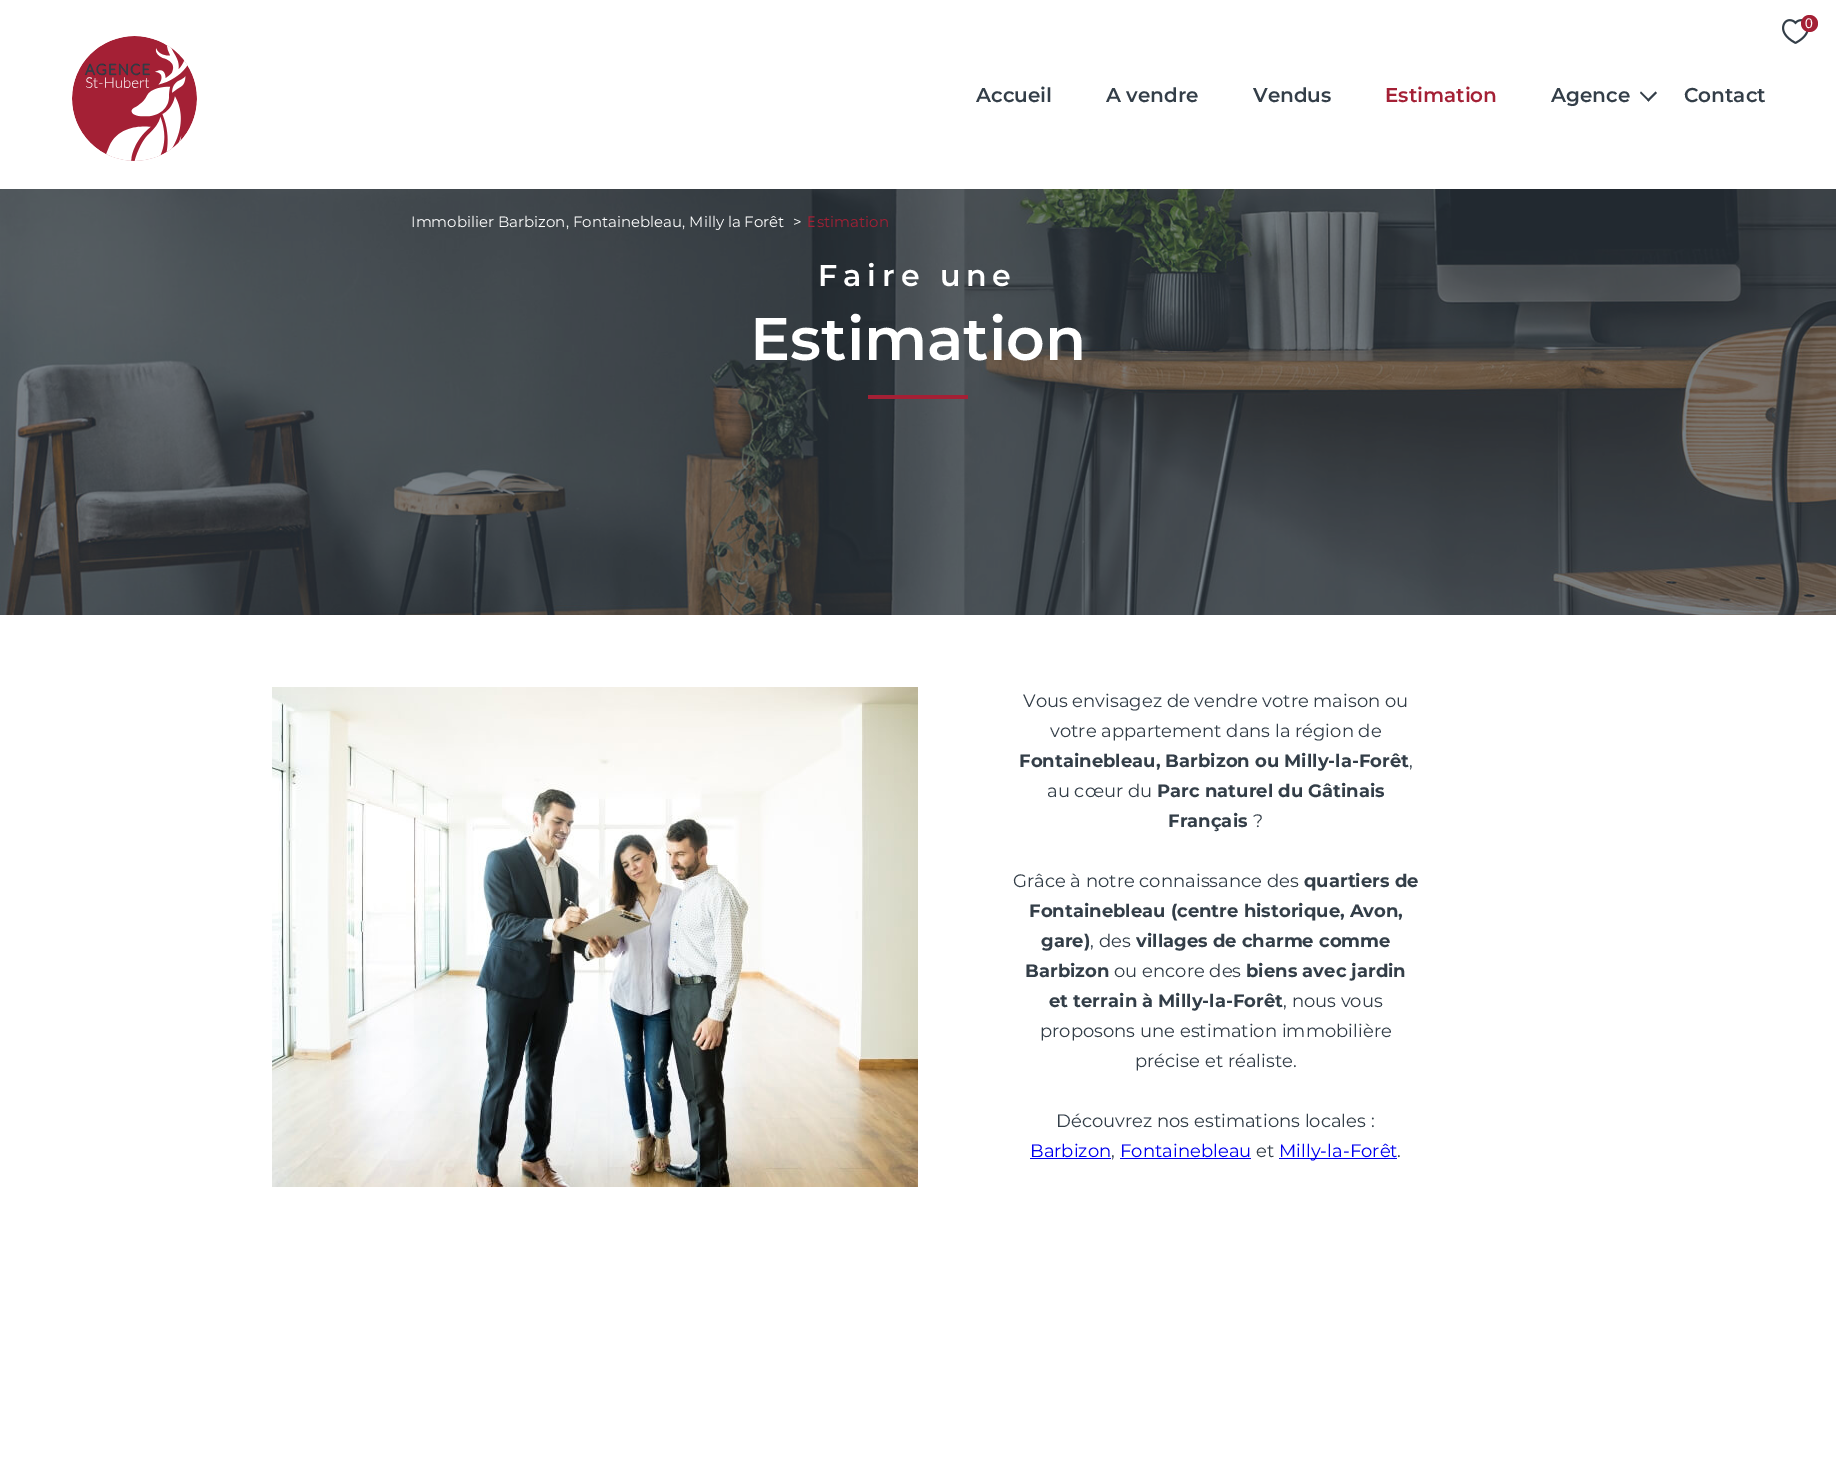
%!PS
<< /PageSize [1836 1463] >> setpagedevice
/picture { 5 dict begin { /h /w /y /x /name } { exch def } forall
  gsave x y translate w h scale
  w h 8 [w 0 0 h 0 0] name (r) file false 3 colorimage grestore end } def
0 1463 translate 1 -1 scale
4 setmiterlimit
1 setgray
0 0 1836 1463 rectfill
(img1.rgb) 1782 19 27 25 picture
0.643 0.125 0.208 setrgbcolor
newpath 1809.5 23.5 8.5 0 360 arc closepath fill
/LiberationSans-Regular [14 0 0 -14 0 0] selectfont
1 setgray
1805 28 moveto (0) show
(img2.rgb) 72 36 125 125 picture
/Montserrat-SemiBold [20 0 0 -20 0 0] selectfont
0.2 0.243 0.282 setrgbcolor
976 102 moveto (Accueil) show
1106 102 moveto (A vendre) show
1253 102 moveto (Vendus) show
0.643 0.125 0.208 setrgbcolor
1385 102 moveto (Estimation) show
0.2 0.243 0.282 setrgbcolor
1551 102 moveto (Agence) show
newpath 1648.5 101.5 moveto 1640 93 lineto 1641 91.5 lineto 1649.5 100 lineto closepath fill
newpath 1648.5 101.5 moveto 1647 100 lineto 1655.5 91.5 lineto 1657 93 lineto closepath fill
1684 102 moveto (Contact) show
(img3.rgb) 0 189 1836 426 picture
/Montserrat-Regular [15 0 0 -15 0 0] selectfont
1 setgray
411 227 moveto (Immobilier Barbizon, Fontainebleau, Milly la Forêt) show
793 227 moveto (>) show
/NotoSans-Regular [15 0 0 -15 0 0] selectfont
0.643 0.125 0.208 setrgbcolor
807 227 moveto (E) show
/Montserrat-Regular [15 0 0 -15 0 0] selectfont
817 227 moveto (stimation) show
/Montserrat-SemiBold [30 0 0 -30 0 0] selectfont
1 setgray
818 286 moveto 6 0 (Faire une) ashow
/Montserrat-SemiBold [60 0 0 -60 0 0] selectfont
750 360 moveto (Estimation) show
0.643 0.125 0.208 setrgbcolor
868 395 100 4 rectfill
(img4.rgb) 272 687 646 500 picture
/Montserrat-Regular [18 0 0 -18 0 0] selectfont
0.2 0.243 0.282 setrgbcolor
1023 707 moveto (Vous envisagez de vendre votre maison ou) show
1050 737 moveto (votre appartement dans la région de) show
/Montserrat-Bold [18 0 0 -18 0 0] selectfont
1019 767 moveto (Fontainebleau, Barbizon ou Milly-la-Forêt) show
/Montserrat-Regular [18 0 0 -18 0 0] selectfont
1409 767 moveto (,) show
1047 797 moveto (au cœur du) show
/Montserrat-Bold [18 0 0 -18 0 0] selectfont
1157 797 moveto (Parc naturel du Gâtinais) show
1168 827 moveto (Français) show
/Montserrat-Regular [18 0 0 -18 0 0] selectfont
1253 827 moveto (?) show
1013 887 moveto (Grâce à notre connaissance des) show
/Montserrat-Bold [18 0 0 -18 0 0] selectfont
1304 887 moveto (quartiers de) show
1029 917 moveto (Fontainebleau \(centre historique, Avon,) show
1041 947 moveto (gare\)) show
/Montserrat-Regular [18 0 0 -18 0 0] selectfont
1090 947 moveto (, des) show
/Montserrat-Bold [18 0 0 -18 0 0] selectfont
1136 947 moveto (villages de charme comme) show
1025 977 moveto (Barbizon) show
/Montserrat-Regular [18 0 0 -18 0 0] selectfont
1114 977 moveto (ou encore des) show
/Montserrat-Bold [18 0 0 -18 0 0] selectfont
1246 977 moveto (biens avec jardin) show
1049 1007 moveto (et terrain à Milly-la-Forêt) show
/Montserrat-Regular [18 0 0 -18 0 0] selectfont
1283 1007 moveto (, nous vous) show
1040 1037 moveto (proposons une estimation immobilière) show
1135 1067 moveto (précise et réaliste.) show
1056 1127 moveto (Découvrez nos estimations locales :) show
0 0 0.933 setrgbcolor
1030 1157 moveto (Barbizon) show
1030 1158 81 1 rectfill
0.2 0.243 0.282 setrgbcolor
1111 1157 moveto (,) show
0 0 0.933 setrgbcolor
1120 1157 moveto (Fontainebleau) show
1120 1158 131 1 rectfill
0.2 0.243 0.282 setrgbcolor
1256 1157 moveto (et) show
0 0 0.933 setrgbcolor
1279 1158 118 1 rectfill
1279 1157 moveto (Milly-la-Forêt) show
0.2 0.243 0.282 setrgbcolor
1397 1157 moveto (.) show
showpage
